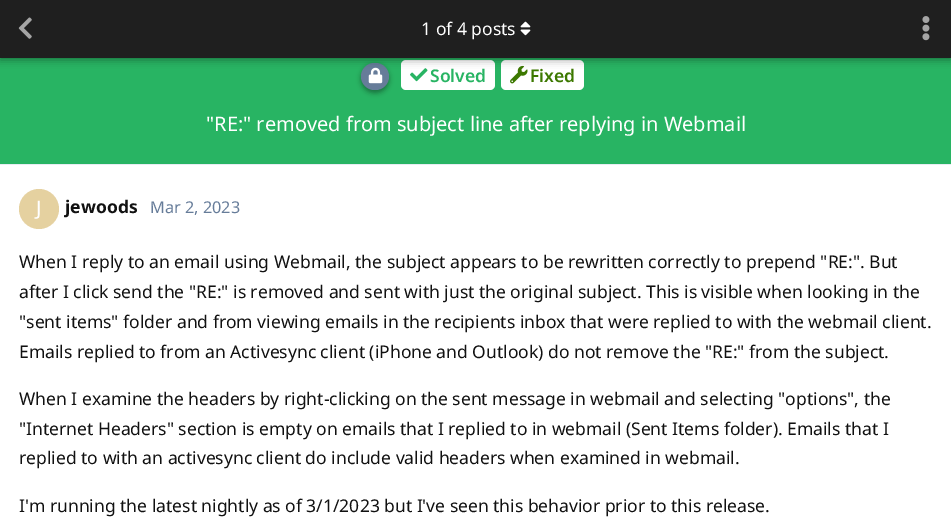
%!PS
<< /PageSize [951 529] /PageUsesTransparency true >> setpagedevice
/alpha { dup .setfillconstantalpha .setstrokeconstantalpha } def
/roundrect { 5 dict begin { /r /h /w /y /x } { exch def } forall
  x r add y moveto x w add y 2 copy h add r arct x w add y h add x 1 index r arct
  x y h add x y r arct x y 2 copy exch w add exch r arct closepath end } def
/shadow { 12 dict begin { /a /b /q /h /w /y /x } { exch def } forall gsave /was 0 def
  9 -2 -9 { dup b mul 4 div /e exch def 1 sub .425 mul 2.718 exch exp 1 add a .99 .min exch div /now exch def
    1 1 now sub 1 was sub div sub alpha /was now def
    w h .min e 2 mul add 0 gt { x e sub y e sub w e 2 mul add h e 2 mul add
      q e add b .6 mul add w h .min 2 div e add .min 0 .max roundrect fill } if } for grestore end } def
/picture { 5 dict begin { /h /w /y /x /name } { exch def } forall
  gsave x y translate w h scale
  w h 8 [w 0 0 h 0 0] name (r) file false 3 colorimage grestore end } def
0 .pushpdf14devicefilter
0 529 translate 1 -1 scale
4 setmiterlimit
1 setgray
0 0 951 529 rectfill
0.157 0.706 0.388 setrgbcolor
0 58 951 106 rectfill
0 setgray
361 65 28 28 14 2.5 0.35 shadow
0.4 0.486 0.6 setrgbcolor
361 63 28 27 13.5 roundrect fill
(img4.rgb) 368 67 15 17 picture
1 setgray
401 60 94 30 5 roundrect fill
(img5.rgb) 410 68 18 14 picture
501 60 83 30 5 roundrect fill
(img6.rgb) 510 65 18 19 picture
0 setgray
0 3 951 57 0 4 0.35 shadow
0.122 setgray
0 0 951 58 rectfill
(img1.rgb) 18 17 14 22 picture
0.91 0.925 0.953 setrgbcolor
0 164 951 1 rectfill
/NotoSans-Regular [17.5 0 0 -17.5 0 0] selectfont
1 setgray
421 35 moveto (1 of 4 posts) show
(img2.rgb) 520 21 11 15 picture
(img3.rgb) 922 16 8 25 picture
0.898 0.82 0.627 setrgbcolor
newpath 39 209 20 0 360 arc closepath fill
/NotoSans-Regular [20 0 0 -20 0 0] selectfont
1 setgray
36 215 moveto (J) show
/NotoSans-Bold [17.5 0 0 -17.5 0 0] selectfont
0.067 setgray
65 213 moveto (jewoods) show
/NotoSans-Regular [16.25 0 0 -16.25 0 0] selectfont
0.4 0.486 0.6 setrgbcolor
150 213 moveto (Mar 2, 2023) show
/NotoSans-Regular [17.5 0 0 -17.5 0 0] selectfont
0.067 setgray
19 268 moveto (When I reply to an email using Webmail, the subject appears to be rewritten correctly to prepend "RE:". But) show
19 298 moveto (after I click send the "RE:" is removed and sent with just the original subject. This is visible when looking in the) show
19 328 moveto ("sent items" folder and from viewing emails in the recipients inbox that were replied to with the webmail client.) show
19 358 moveto (Emails replied to from an Activesync client \(iPhone and Outlook\) do not remove the "RE:" from the subject.) show
19 405 moveto (When I examine the headers by right-clicking on the sent message in webmail and selecting "options", the) show
19 435 moveto ("Internet Headers" section is empty on emails that I replied to in webmail \(Sent Items folder\). Emails that I) show
19 464 moveto (replied to with an activesync client do include valid headers when examined in webmail.) show
19 512 moveto (I'm running the latest nightly as of 3/1/2023 but I've seen this behavior prior to this release.) show
/NotoSans-SemiBold [17.5 0 0 -17.5 0 0] selectfont
0.157 0.706 0.388 setrgbcolor
430 82 moveto (Solved) show
0.235 0.471 0 setrgbcolor
530 82 moveto (Fixed) show
/NotoSans-Regular [20 0 0 -20 0 0] selectfont
1 setgray
206 131 moveto ("RE:" removed from subject line after replying in Webmail) show
.poppdf14devicefilter showpage
